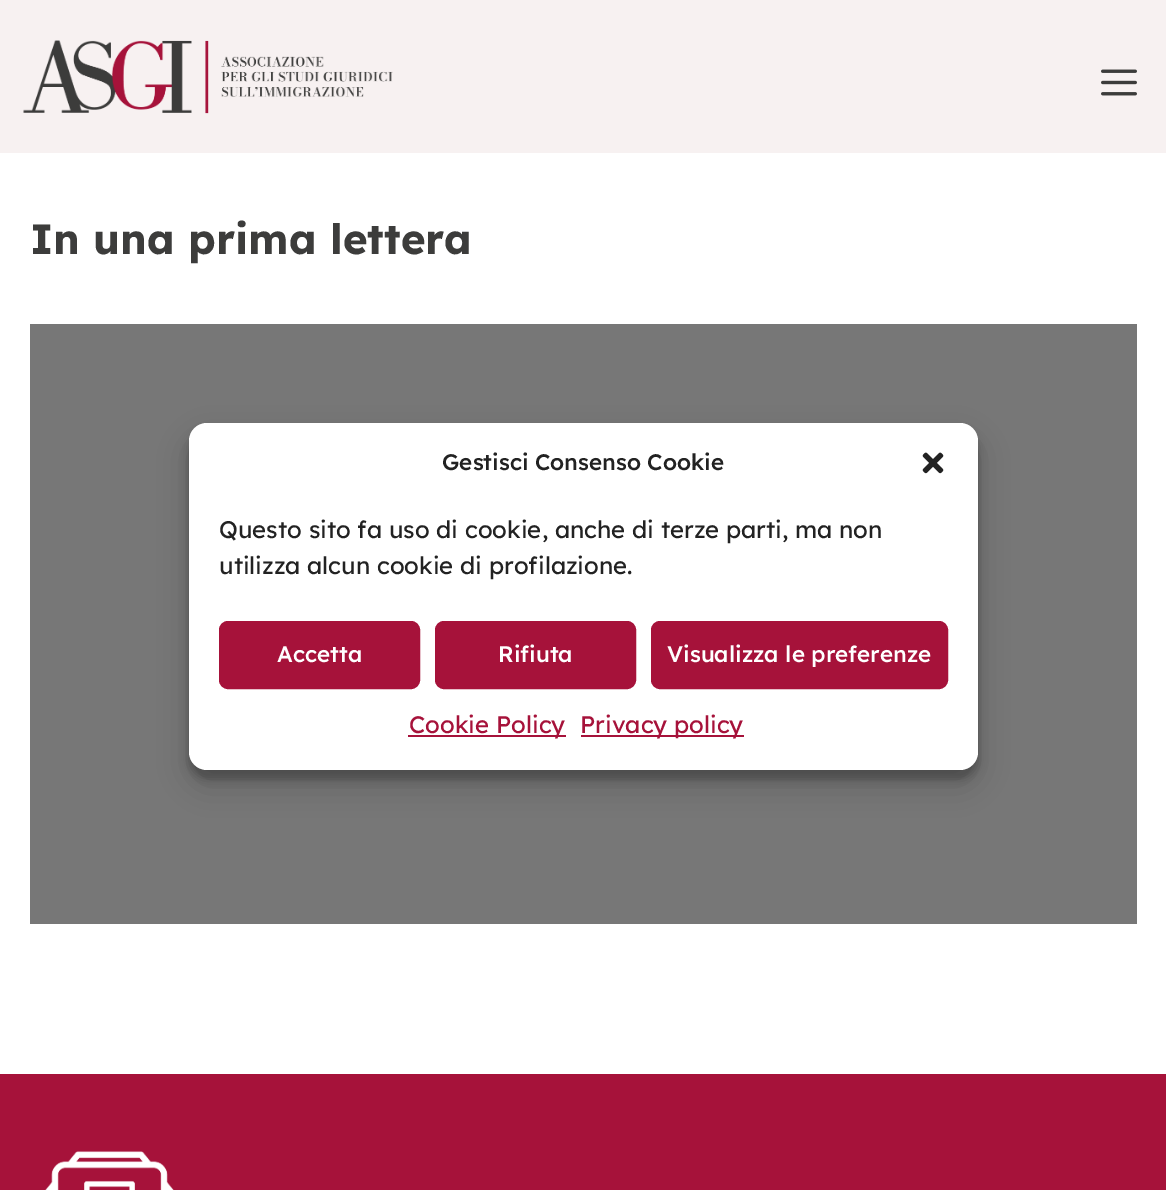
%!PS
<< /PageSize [1166 1190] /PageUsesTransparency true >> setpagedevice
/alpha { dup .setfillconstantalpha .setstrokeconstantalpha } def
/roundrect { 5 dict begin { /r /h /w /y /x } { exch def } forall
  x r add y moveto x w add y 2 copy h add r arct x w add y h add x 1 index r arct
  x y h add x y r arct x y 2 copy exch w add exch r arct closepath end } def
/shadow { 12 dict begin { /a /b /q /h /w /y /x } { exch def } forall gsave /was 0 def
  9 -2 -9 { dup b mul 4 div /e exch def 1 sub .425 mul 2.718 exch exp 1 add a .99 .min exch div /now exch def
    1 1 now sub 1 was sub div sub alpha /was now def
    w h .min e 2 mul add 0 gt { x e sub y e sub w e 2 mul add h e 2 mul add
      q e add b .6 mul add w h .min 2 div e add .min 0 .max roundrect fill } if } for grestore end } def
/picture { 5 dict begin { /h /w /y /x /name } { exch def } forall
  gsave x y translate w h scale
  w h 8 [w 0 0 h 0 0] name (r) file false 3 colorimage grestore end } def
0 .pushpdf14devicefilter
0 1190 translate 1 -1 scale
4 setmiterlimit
1 setgray
0 0 1166 1190 rectfill
0.969 0.945 0.945 setrgbcolor
0 0 1166 153 rectfill
(img1.rgb) 23 40 370 74 picture
(img2.rgb) 1101 69 36 27 picture
/Lexend-Bold [42 0 0 -42 0 0] selectfont
0.235 0.235 0.231 setrgbcolor
30 254 moveto (In una prima lettera) show
0.467 setgray
30 324 1107 600 rectfill
0 setgray
189 432 789 347 18 4.5 0.23 shadow
189 438 789 347 18 15 0.19 shadow
1 setgray
189 423 789 347 18 roundrect fill
/Lexend-Medium [22.5 0 0 -22.5 0 0] selectfont
0.133 setgray
442 470 moveto (Gestisci Consenso Cookie) show
(img3.rgb) 922 452 22 22 picture
/Lexend-Regular [24 0 0 -24 0 0] selectfont
219 538 moveto (Questo sito fa uso di cookie, anche di terze parti, ma non) show
219 574 moveto (utilizza alcun cookie di profilazione.) show
0.651 0.071 0.227 setrgbcolor
220 622 199 66 8 roundrect gsave fill grestore
2 setlinewidth
stroke
/Lexend-Medium [22.5 0 0 -22.5 0 0] selectfont
1 setgray
277 662 moveto (Accetta) show
0.651 0.071 0.227 setrgbcolor
436 622 199 66 8 roundrect gsave fill grestore
stroke
1 setgray
498 662 moveto (Rifiuta) show
0.651 0.071 0.227 setrgbcolor
652 622 295 66 8 roundrect gsave fill grestore
stroke
1 setgray
667 662 moveto (Visualizza le preferenze) show
0.651 0.071 0.227 setrgbcolor
408 735 158 2 rectfill
/Lexend-Regular [24 0 0 -24 0 0] selectfont
409 733 moveto (Cookie Policy) show
581 735 163 2 rectfill
580 733 moveto (Privacy policy) show
0 1074 1166 116 rectfill
(img4.rgb) 45 1151 129 39 picture
.poppdf14devicefilter showpage
